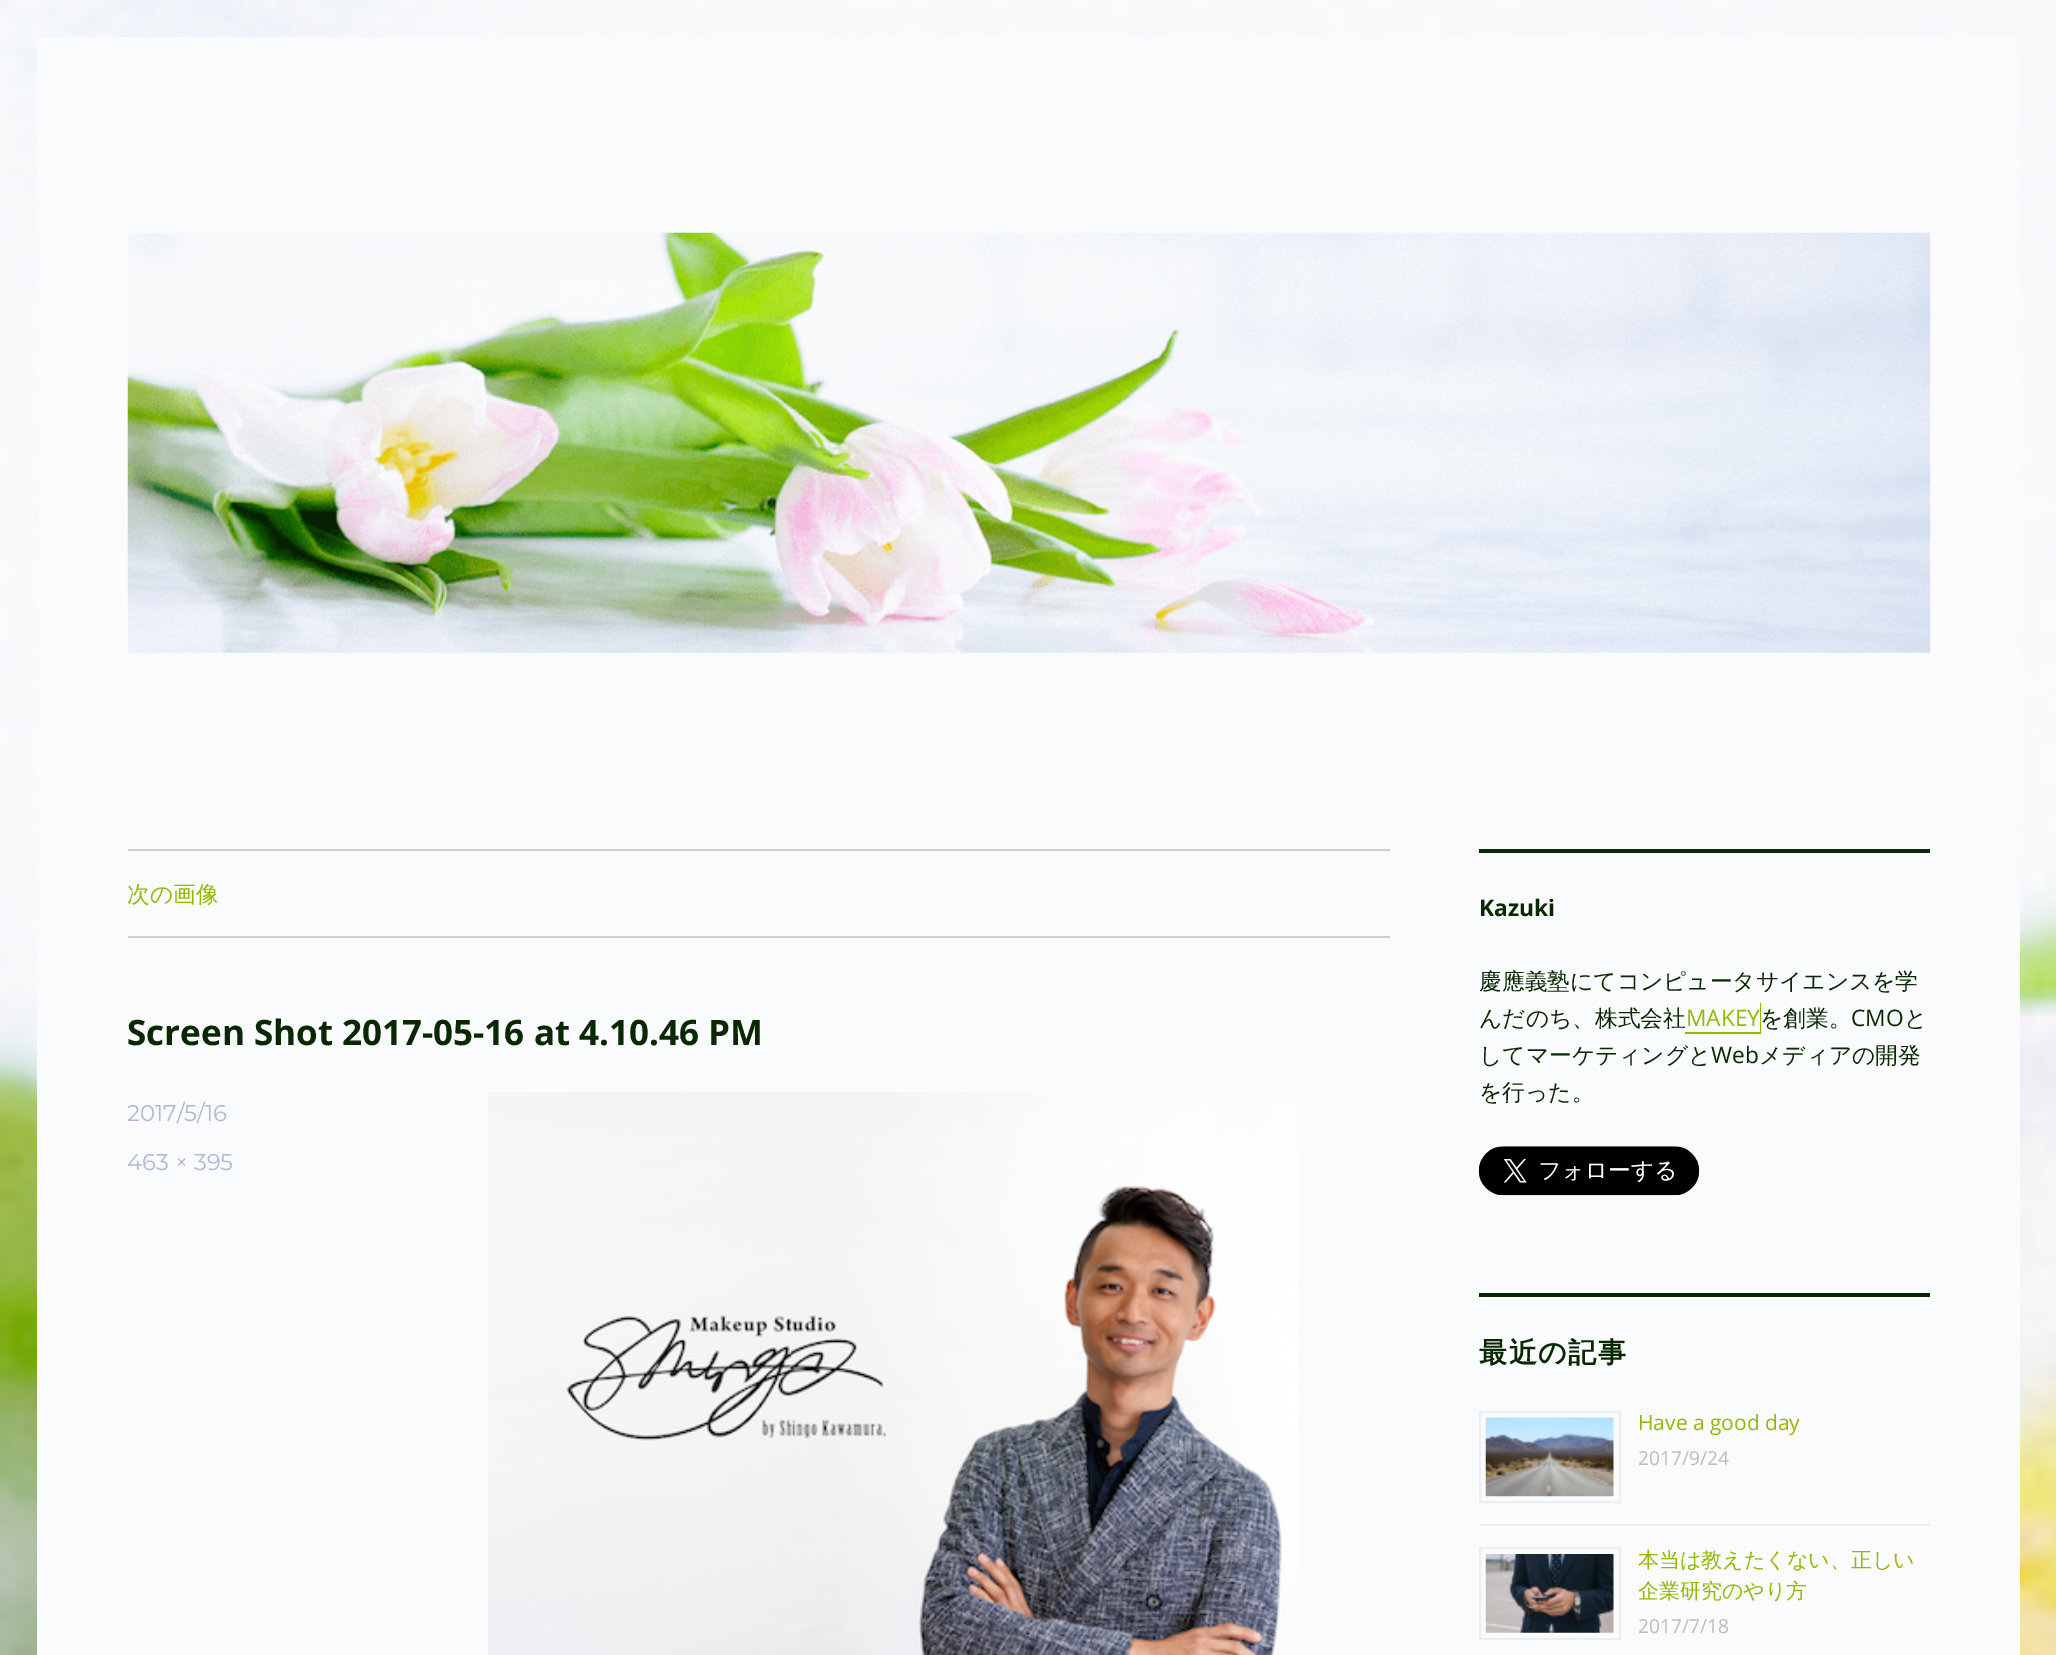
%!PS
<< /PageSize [2056 1655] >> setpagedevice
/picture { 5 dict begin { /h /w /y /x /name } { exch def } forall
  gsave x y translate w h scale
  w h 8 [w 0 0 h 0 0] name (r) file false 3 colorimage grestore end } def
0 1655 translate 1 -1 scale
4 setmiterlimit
1 setgray
0 0 2056 1655 rectfill
(img1.rgb) 0 0 2056 1655 picture
0.98 0.984 0.988 setrgbcolor
37 37 1983 1618 rectfill
(img2.rgb) 127 232 1804 421 picture
0.792 0.82 0.792 setrgbcolor
128 849 1262 2 rectfill
128 936 1262 2 rectfill
/WenQuanYiZenHei-Medium [22.75 0 0 -22.75 0 0] selectfont
0.565 0.725 0 setrgbcolor
127 902 moveto (次の画像) show
/OpenSans-Bold [35 0 0 -35 0 0] selectfont
0.031 0.157 0.008 setrgbcolor
127 1045 moveto (Screen Shot 2017-05-16 at 4.10.46 PM) show
/Montserrat-Regular [22.75 0 0 -22.75 0 0] selectfont
0.694 0.71 0.839 setrgbcolor
127 1121 moveto (2017/5/16) show
127 1170 moveto (463 × 395) show
(img3.rgb) 488 1092 810 563 picture
0.031 0.157 0.008 setrgbcolor
1479 849 451 4 rectfill
/OpenSans-Bold [22.75 0 0 -22.75 0 0] selectfont
1479 916 moveto (Kazuki) show
/WenQuanYiZenHei-Medium [22.75 0 0 -22.75 0 0] selectfont
1479 989 moveto (慶應義塾にてコンピュータサイエンスを学) show
1479 1026 moveto (んだのち、株式会社) show
0.565 0.725 0 setrgbcolor
newpath 1685 1003 moveto 1685 1034 lineto 1761 1034 lineto 1761 1003 lineto 1760 1003 lineto 1760 1032 lineto 1685 1032 lineto closepath fill
/OpenSans-Regular [22.75 0 0 -22.75 0 0] selectfont
1686 1026 moveto (MAKEY) show
/WenQuanYiZenHei-Medium [22.75 0 0 -22.75 0 0] selectfont
0.031 0.157 0.008 setrgbcolor
1760 1026 moveto (を創業。) show
/OpenSans-Regular [22.75 0 0 -22.75 0 0] selectfont
1851 1026 moveto (CMO) show
/WenQuanYiZenHei-Medium [22.75 0 0 -22.75 0 0] selectfont
1904 1026 moveto (と) show
1479 1063 moveto (してマーケティングと) show
/OpenSans-Regular [22.75 0 0 -22.75 0 0] selectfont
1711 1063 moveto (Web) show
/WenQuanYiZenHei-Medium [22.75 0 0 -22.75 0 0] selectfont
1759 1063 moveto (メディアの開発) show
1479 1100 moveto (を行った。) show
(img4.rgb) 1478 1146 222 50 picture
1479 1293 451 4 rectfill
/WenQuanYiZenHei-Bold [28 0 0 -28 0 0] selectfont
1479 1362 moveto 1.5 0 (最近の記事) ashow
0.933 setgray
1479 1524 451 2 rectfill
2 setlinewidth
1480 1412 140 90 rectstroke
(img5.rgb) 1485 1417 129 80 picture
/OpenSans-Regular [21 0 0 -21 0 0] selectfont
0.565 0.725 0 setrgbcolor
1638 1430 moveto (Have a good day) show
/OpenSans-Regular [19.25 0 0 -19.25 0 0] selectfont
0.733 setgray
1638 1465 moveto (2017/9/24) show
0.933 setgray
1480 1548 140 91 rectstroke
(img6.rgb) 1485 1554 129 79 picture
/WenQuanYiZenHei-Medium [21 0 0 -21 0 0] selectfont
0.565 0.725 0 setrgbcolor
1638 1567 moveto (本当は教えたくない、正しい) show
1638 1598 moveto (企業研究のやり方) show
/OpenSans-Regular [19.25 0 0 -19.25 0 0] selectfont
0.733 setgray
1638 1633 moveto (2017/7/18) show
showpage
